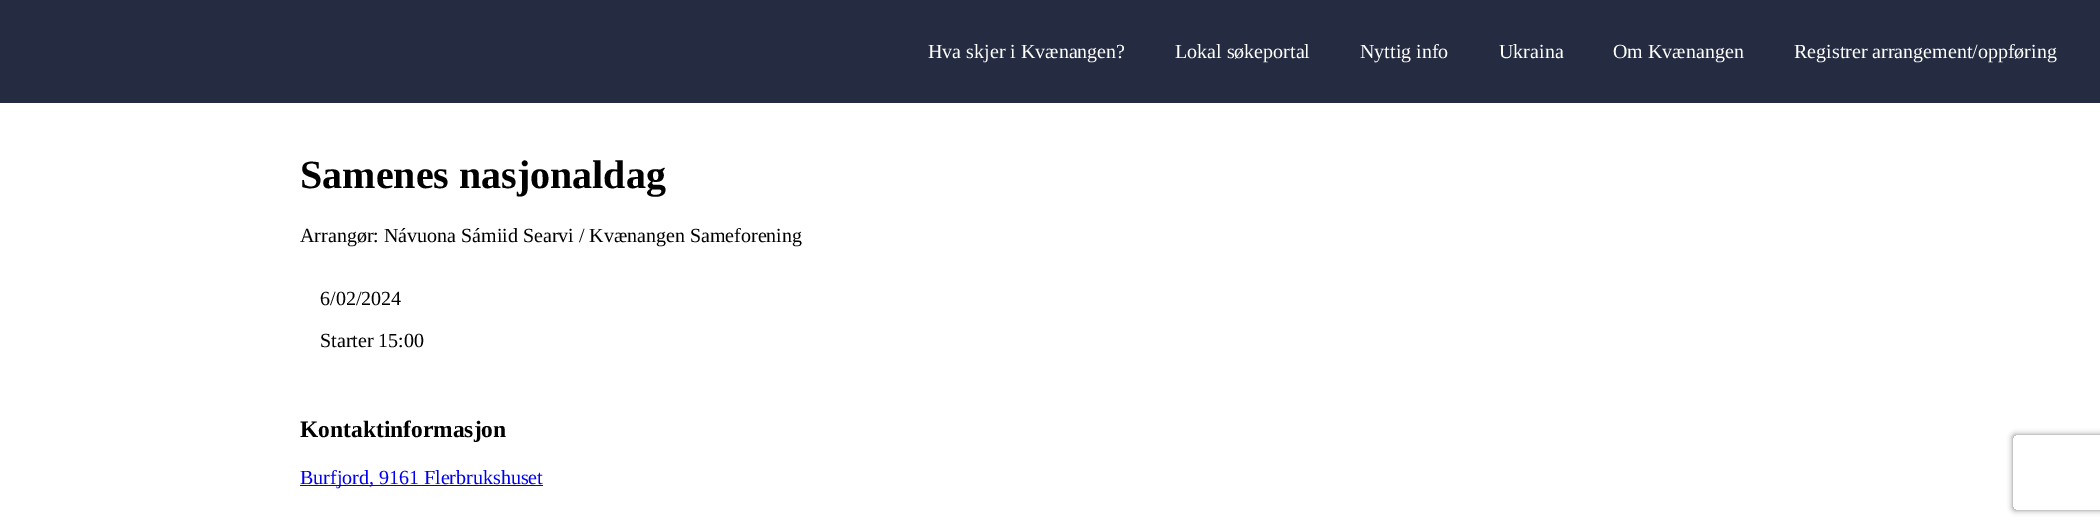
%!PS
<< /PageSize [2100 527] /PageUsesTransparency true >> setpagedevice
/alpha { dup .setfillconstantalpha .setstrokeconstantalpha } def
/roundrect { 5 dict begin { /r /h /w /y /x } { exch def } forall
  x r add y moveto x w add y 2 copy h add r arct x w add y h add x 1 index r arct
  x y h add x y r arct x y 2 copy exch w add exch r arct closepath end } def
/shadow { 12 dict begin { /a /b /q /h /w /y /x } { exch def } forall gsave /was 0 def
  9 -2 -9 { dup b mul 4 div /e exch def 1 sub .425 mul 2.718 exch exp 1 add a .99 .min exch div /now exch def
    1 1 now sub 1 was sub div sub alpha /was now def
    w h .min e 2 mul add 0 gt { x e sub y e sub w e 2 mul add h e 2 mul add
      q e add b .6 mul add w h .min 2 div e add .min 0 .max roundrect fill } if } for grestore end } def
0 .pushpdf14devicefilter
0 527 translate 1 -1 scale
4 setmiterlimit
1 setgray
0 0 2100 527 rectfill
0.145 0.173 0.255 setrgbcolor
0 0 2100 103 rectfill
/LiberationSerif-Regular [20 0 0 -20 0 0] selectfont
1 setgray
928 58 moveto (Hva skjer i Kvænangen?) show
1175 58 moveto (Lokal søkeportal) show
1360 58 moveto (Nyttig info) show
1499 58 moveto (Ukraina) show
1613 58 moveto (Om Kvænangen) show
1794 58 moveto (Registrer arrangement/oppføring) show
/LiberationSerif-Bold [40 0 0 -40 0 0] selectfont
0 setgray
300 188 moveto (Samenes nasjonaldag) show
/LiberationSerif-Regular [20 0 0 -20 0 0] selectfont
300 242 moveto (Arrangør: Návuona Sámiid Searvi / Kvænangen Sameforening) show
320 305 moveto (6/02/2024) show
320 347 moveto (Starter 15:00) show
/LiberationSerif-Bold [23.5 0 0 -23.5 0 0] selectfont
300 437 moveto (Kontaktinformasjon) show
0 0 0.933 setrgbcolor
300 485 243 1 rectfill
/LiberationSerif-Regular [20 0 0 -20 0 0] selectfont
300 484 moveto (Burfjord, 9161 Flerbrukshuset) show
gsave
newpath 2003 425 moveto 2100 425 lineto 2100 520 lineto 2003 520 lineto closepath 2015.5 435 moveto 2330.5 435 lineto 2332 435 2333 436 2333 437.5 curveto 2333 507.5 lineto 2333 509 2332 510 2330.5 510 curveto 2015.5 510 lineto 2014 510 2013 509 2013 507.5 curveto 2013 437.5 lineto 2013 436 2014 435 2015.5 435 curveto closepath eoclip newpath
0.502 setgray
2013 435 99 75 2.5 3 1 shadow
grestore
.poppdf14devicefilter showpage
